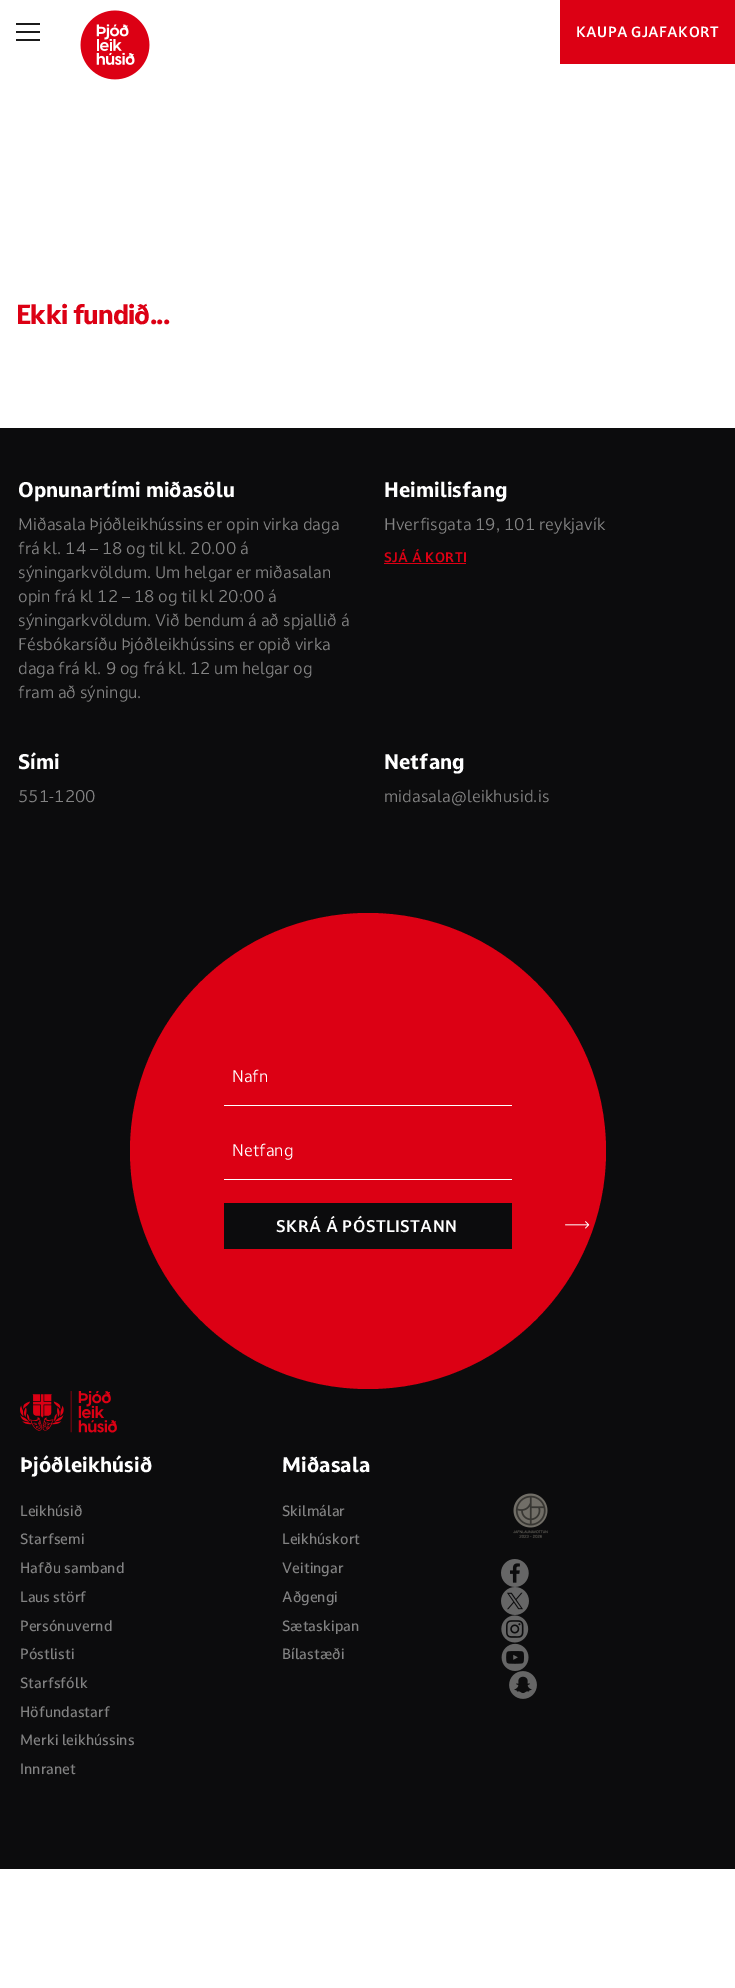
%!PS
<< /PageSize [735 1988] >> setpagedevice
/picture { 5 dict begin { /h /w /y /x /name } { exch def } forall
  gsave x y translate w h scale
  w h 8 [w 0 0 h 0 0] name (r) file false 3 colorimage grestore end } def
0 1988 translate 1 -1 scale
4 setmiterlimit
1 setgray
0 0 735 1988 rectfill
0.106 setgray
16 23 24 2 rectfill
16 31 24 2 rectfill
16 39 24 2 rectfill
(img1.rgb) 80 10 70 70 picture
0.863 0 0.078 setrgbcolor
560 0 175 64 rectfill
/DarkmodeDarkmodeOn-Bold [14 0 0 -14 0 0] selectfont
1 setgray
576 37 moveto 0.25 0 (KAUPA GJAFAKORT) ashow
/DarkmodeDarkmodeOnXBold-Bold [26 0 0 -26 0 0] selectfont
0.863 0 0.078 setrgbcolor
16 324 moveto -1 0 (Ekki fundið...) ashow
0.047 0.047 0.051 setrgbcolor
0 428 735 1441 rectfill
/DarkmodeDarkmodeOnXBold-Bold [20 0 0 -20 0 0] selectfont
1 setgray
18 497 moveto (Opnunartími miðasölu) show
/DarkmodeDarkmodeOn-Regular [16 0 0 -16 0 0] selectfont
0.514 setgray
18 530 moveto (Miðasala Þjóðleikhússins er opin virka daga) show
18 554 moveto (frá kl. 14 – 18 og til kl. 20.00 á) show
18 578 moveto (sýningarkvöldum. Um helgar er miðasalan) show
18 602 moveto (opin frá kl 12 – 18 og til kl 20:00 á) show
18 626 moveto (sýningarkvöldum. Við bendum á að spjallið á) show
18 650 moveto (Fésbókarsíðu Þjóðleikhússins er opið virka) show
18 674 moveto (daga frá kl. 9 og frá kl. 12 um helgar og) show
18 698 moveto (fram að sýningu.) show
/DarkmodeDarkmodeOnXBold-Bold [20 0 0 -20 0 0] selectfont
1 setgray
384 497 moveto (Heimilisfang) show
/DarkmodeDarkmodeOn-Regular [16 0 0 -16 0 0] selectfont
0.514 setgray
384 530 moveto (Hverfisgata 19, 101 reykjavík) show
/DarkmodeDarkmodeOn-Bold [13 0 0 -13 0 0] selectfont
0.863 0 0.078 setrgbcolor
384 562 moveto 0.25 0 (SJÁ Á KORTI) ashow
384 563 82 1 rectfill
/DarkmodeDarkmodeOnXBold-Bold [20 0 0 -20 0 0] selectfont
1 setgray
18 769 moveto (Sími) show
/DarkmodeDarkmodeOn-Regular [16 0 0 -16 0 0] selectfont
0.514 setgray
18 802 moveto (551-1200) show
/DarkmodeDarkmodeOnXBold-Bold [20 0 0 -20 0 0] selectfont
1 setgray
384 769 moveto (Netfang) show
/DarkmodeDarkmodeOn-Regular [16 0 0 -16 0 0] selectfont
0.514 setgray
384 802 moveto (midasala@leikhusid.is) show
0.863 0 0.078 setrgbcolor
newpath 368 1151 238 0 360 arc closepath fill
1 setgray
224 1105 288 1 rectfill
232 1082 moveto (Nafn) show
224 1179 288 1 rectfill
232 1156 moveto (Netfang) show
0.047 0.047 0.051 setrgbcolor
224 1203 288 46 rectfill
/DarkmodeDarkmodeOn-Bold [16 0 0 -16 0 0] selectfont
1 setgray
276 1232 moveto 0.3 0 (SKRÁ Á PÓSTLISTANN) ashow
(img2.rgb) 565 1221 25 8 picture
(img3.rgb) 20 1391 97 42 picture
(img4.rgb) 513 1493 35 45 picture
/DarkmodeDarkmodeOnXBold-Bold [20 0 0 -20 0 0] selectfont
20 1472 moveto (Þjóðleikhúsið) show
/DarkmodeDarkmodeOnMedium-Medium [14 0 0 -14 0 0] selectfont
0.514 setgray
20 1516 moveto (Leikhúsið) show
20 1544 moveto (Starfsemi) show
20 1573 moveto (Hafðu samband) show
20 1602 moveto (Laus störf) show
20 1631 moveto (Persónuvernd) show
20 1659 moveto (Póstlisti) show
20 1688 moveto (Starfsfólk) show
20 1717 moveto (Höfundastarf) show
20 1745 moveto (Merki leikhússins) show
20 1774 moveto (Innranet) show
/DarkmodeDarkmodeOnXBold-Bold [20 0 0 -20 0 0] selectfont
1 setgray
282 1472 moveto (Miðasala) show
/DarkmodeDarkmodeOnMedium-Medium [14 0 0 -14 0 0] selectfont
0.514 setgray
282 1516 moveto (Skilmálar) show
282 1544 moveto (Leikhúskort) show
282 1573 moveto (Veitingar) show
282 1602 moveto (Aðgengi) show
282 1631 moveto (Sætaskipan) show
282 1659 moveto (Bílastæði) show
(img5.rgb) 501 1559 28 28 picture
(img6.rgb) 501 1587 28 28 picture
(img7.rgb) 501 1615 28 28 picture
(img8.rgb) 501 1643 28 28 picture
(img9.rgb) 509 1671 28 28 picture
showpage
